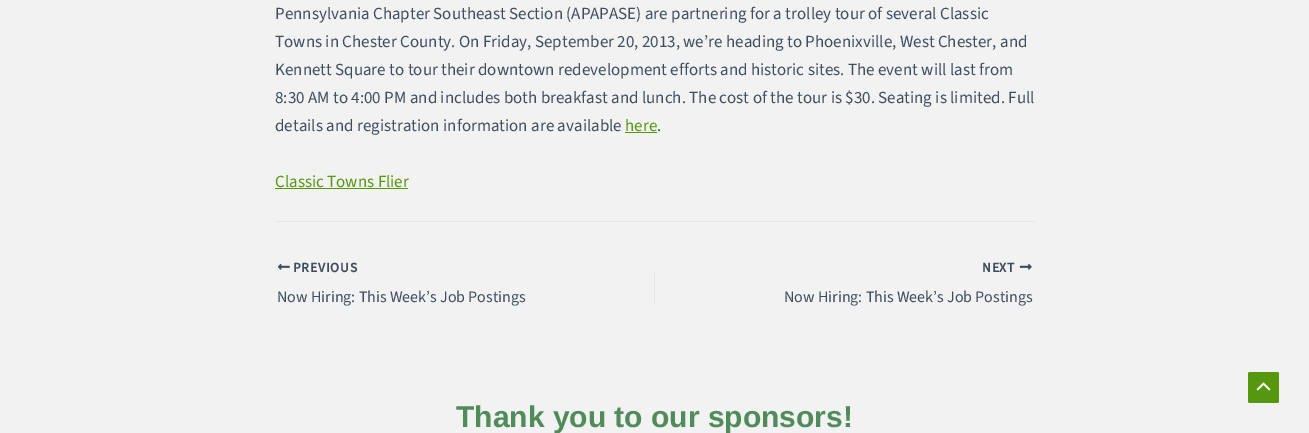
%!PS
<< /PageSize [1309 433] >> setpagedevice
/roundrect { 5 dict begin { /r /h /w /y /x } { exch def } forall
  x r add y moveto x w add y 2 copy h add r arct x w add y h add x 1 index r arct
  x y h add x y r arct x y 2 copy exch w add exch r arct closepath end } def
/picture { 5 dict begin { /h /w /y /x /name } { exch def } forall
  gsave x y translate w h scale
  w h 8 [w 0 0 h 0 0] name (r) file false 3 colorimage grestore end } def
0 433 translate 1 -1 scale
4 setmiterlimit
0.949 setgray
0 0 1309 433 rectfill
/SourceSans3-Regular [17 0 0 -17 0 0] selectfont
0.247 0.302 0.373 setrgbcolor
275 19 moveto (Pennsylvania Chapter Southeast Section \(APAPASE\) are partnering for a trolley tour of several Classic) show
275 47 moveto (Towns in Chester County. On Friday, September 20, 2013, we’re heading to Phoenixville, West Chester, and) show
275 75 moveto (Kennett Square to tour their downtown redevelopment efforts and historic sites. The event will last from) show
275 103 moveto (8:30 AM to 4:00 PM and includes both breakfast and lunch. The cost of the tour is $30. Seating is limited. Full) show
275 131 moveto (details and registration information are available) show
0.333 0.596 0.051 setrgbcolor
625 131 moveto (here) show
625 132 32 1 rectfill
0.247 0.302 0.373 setrgbcolor
657 131 moveto (.) show
0.333 0.596 0.051 setrgbcolor
275 187 moveto (Classic Towns Flier) show
275 188 133 1 rectfill
0.882 0.91 0.929 setrgbcolor
275 221 760 1 rectfill
(img1.rgb) 277 263 13 7 picture
/SourceSans3-Bold [13.5 0 0 -13.5 0 0] selectfont
0.247 0.302 0.373 setrgbcolor
293 272 moveto 0.75 0 (PREVIOUS) ashow
/SourceSans3-Regular [16 0 0 -16 0 0] selectfont
277 302 moveto (Now Hiring: This Week’s Job Postings) show
0.882 0.91 0.929 setrgbcolor
654 272 1 32 rectfill
/SourceSans3-Bold [13.5 0 0 -13.5 0 0] selectfont
0.247 0.302 0.373 setrgbcolor
982 272 moveto 0.75 0 (NEXT) ashow
(img2.rgb) 1019 263 13 7 picture
/SourceSans3-Regular [16 0 0 -16 0 0] selectfont
784 302 moveto (Now Hiring: This Week’s Job Postings) show
/LiberationSans-Bold [30 0 0 -30 0 0] selectfont
0.31 0.549 0.349 setrgbcolor
456 427 moveto (Thank you to our sponsors!) show
0.333 0.596 0.051 setrgbcolor
1248 372 31 31 2 roundrect fill
(img3.rgb) 1256 382 15 9 picture
showpage
